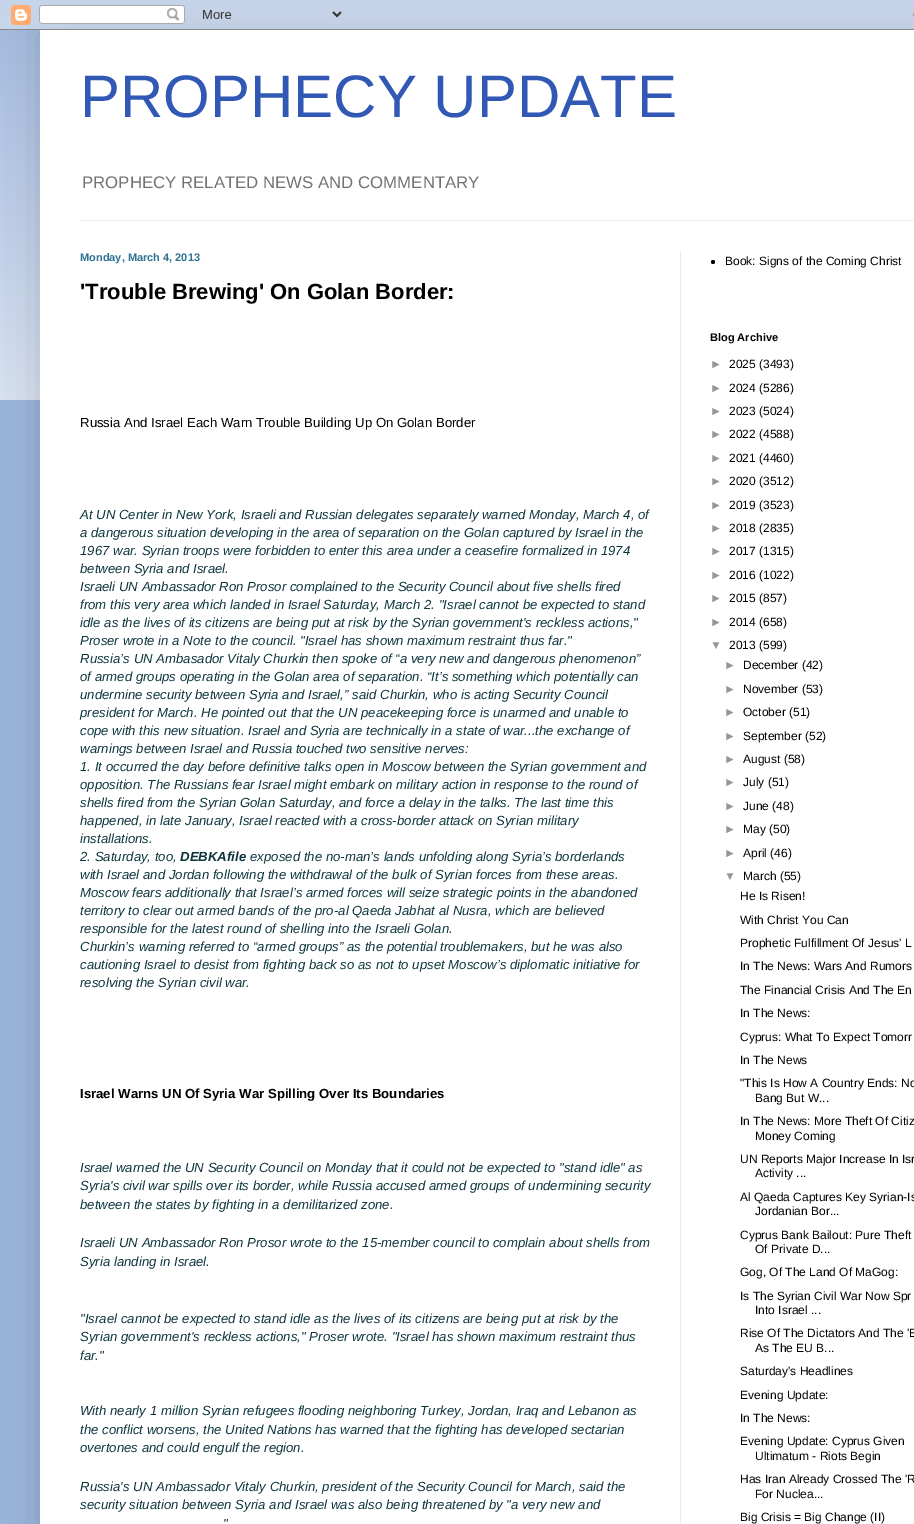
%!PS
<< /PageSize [914 1524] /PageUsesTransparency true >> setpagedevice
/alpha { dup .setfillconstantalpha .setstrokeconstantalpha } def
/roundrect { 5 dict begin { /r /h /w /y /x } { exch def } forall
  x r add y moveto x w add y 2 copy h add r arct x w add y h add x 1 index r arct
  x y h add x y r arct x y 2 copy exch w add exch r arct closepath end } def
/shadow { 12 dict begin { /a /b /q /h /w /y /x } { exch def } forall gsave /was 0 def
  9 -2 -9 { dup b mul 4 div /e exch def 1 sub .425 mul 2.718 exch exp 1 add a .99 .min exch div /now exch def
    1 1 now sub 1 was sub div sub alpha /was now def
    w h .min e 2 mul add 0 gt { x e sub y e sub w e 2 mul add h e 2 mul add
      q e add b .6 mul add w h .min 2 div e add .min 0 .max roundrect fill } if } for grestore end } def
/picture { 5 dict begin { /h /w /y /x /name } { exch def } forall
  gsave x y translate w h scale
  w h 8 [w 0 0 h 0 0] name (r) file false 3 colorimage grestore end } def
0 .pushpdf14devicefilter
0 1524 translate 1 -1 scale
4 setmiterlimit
0.608 0.706 0.859 setrgbcolor
0 0 914 1524 rectfill
(img1.rgb) 0 0 914 400 picture
0 setgray
40 30 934 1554 0 20 0.15 shadow
(img2.rgb) 0 0 914 30 picture
1 setgray
40 30 874 1494 rectfill
/LiberationSans-Regular [60 0 0 -60 0 0] selectfont
0.192 0.345 0.706 setrgbcolor
80 117 moveto (PROPHECY UPDATE) show
/LiberationSans-Regular [16.8 0 0 -16.8 0 0] selectfont
0.447 setgray
82 188 moveto (PROPHECY RELATED NEWS AND COMMENTARY) show
0.933 setgray
80 220 834 1 rectfill
0.925 setgray
680 251 1 1273 rectfill
/LiberationSans-Bold [11 0 0 -11 0 0] selectfont
0.184 0.447 0.58 setrgbcolor
80 261 moveto (Monday, March 4, 2013) show
/LiberationSans-Bold [22 0 0 -22 0 0] selectfont
0 setgray
80 299 moveto ('Trouble Brewing' On Golan Border:) show
/LiberationSans-Regular [13.2 0 0 -13.2 0 0] selectfont
80 427 moveto (Russia And Israel Each Warn Trouble Building Up On Golan Border) show
/LiberationSans-Italic [13.2 0 0 -13.2 0 0] selectfont
0.047 0.204 0.239 setrgbcolor
80 519 moveto (At UN Center in New York, Israeli and Russian delegates separately warned Monday, March 4, of) show
80 537 moveto (a dangerous situation developing in the area of separation on the Golan captured by Israel in the) show
80 555 moveto (1967 war. Syrian troops were forbidden to enter this area under a ceasefire formalized in 1974) show
80 573 moveto (between Syria and Israel.) show
80 591 moveto (Israeli UN Ambassador Ron Prosor complained to the Security Council about five shells fired) show
80 609 moveto (from this very area which landed in Israel Saturday, March 2. "Israel cannot be expected to stand) show
80 627 moveto (idle as the lives of its citizens are being put at risk by the Syrian government's reckless actions,") show
80 645 moveto (Proser wrote in a Note to the council. "Israel has shown maximum restraint thus far.") show
80 663 moveto (Russia’s UN Ambasador Vitaly Churkin then spoke of “a very new and dangerous phenomenon”) show
80 681 moveto (of armed groups operating in the Golan area of separation. “It’s something which potentially can) show
80 699 moveto (undermine security between Syria and Israel,” said Churkin, who is acting Security Council) show
80 717 moveto (president for March. He pointed out that the UN peacekeeping force is unarmed and unable to) show
80 735 moveto (cope with this new situation. Israel and Syria are technically in a state of war...the exchange of) show
80 753 moveto (warnings between Israel and Russia touched two sensitive nerves:) show
80 771 moveto (1. It occurred the day before definitive talks open in Moscow between the Syrian government and) show
80 789 moveto (opposition. The Russians fear Israel might embark on military action in response to the round of) show
80 807 moveto (shells fired from the Syrian Golan Saturday, and force a delay in the talks. The last time this) show
80 825 moveto (happened, in late January, Israel reacted with a cross-border attack on Syrian military) show
80 843 moveto (installations.) show
80 861 moveto (2. Saturday, too,) show
/LiberationSans-BoldItalic [13.2 0 0 -13.2 0 0] selectfont
180 861 moveto (DEBKAfile) show
/LiberationSans-Italic [13.2 0 0 -13.2 0 0] selectfont
250 861 moveto (exposed the no-man’s lands unfolding along Syria’s borderlands) show
80 879 moveto (with Israel and Jordan following the withdrawal of the bulk of Syrian forces from these areas.) show
80 897 moveto (Moscow fears additionally that Israel’s armed forces will seize strategic points in the abandoned) show
80 915 moveto (territory to clear out armed bands of the pro-al Qaeda Jabhat al Nusra, which are believed) show
80 933 moveto (responsible for the latest round of shelling into the Israeli Golan.) show
80 951 moveto (Churkin’s warning referred to “armed groups” as the potential troublemakers, but he was also) show
80 969 moveto (cautioning Israel to desist from fighting back so as not to upset Moscow’s diplomatic initiative for) show
80 987 moveto (resolving the Syrian civil war.) show
/LiberationSans-Bold [13.2 0 0 -13.2 0 0] selectfont
0 setgray
80 1098 moveto (Israel Warns UN Of Syria War Spilling Over Its Boundaries) show
/LiberationSans-Italic [13.2 0 0 -13.2 0 0] selectfont
0.047 0.204 0.239 setrgbcolor
80 1172 moveto (Israel warned the UN Security Council on Monday that it could not be expected to "stand idle" as) show
80 1190 moveto (Syria's civil war spills over its border, while Russia accused armed groups of undermining security) show
80 1209 moveto (between the states by fighting in a demilitarized zone.) show
80 1247 moveto (Israeli UN Ambassador Ron Prosor wrote to the 15-member council to complain about shells from) show
80 1266 moveto (Syria landing in Israel.) show
80 1323 moveto ("Israel cannot be expected to stand idle as the lives of its citizens are being put at risk by the) show
80 1341 moveto (Syrian government's reckless actions," Proser wrote. "Israel has shown maximum restraint thus) show
80 1360 moveto (far.") show
80 1415 moveto (With nearly 1 million Syrian refugees flooding neighboring Turkey, Jordan, Iraq and Lebanon as) show
80 1434 moveto (the conflict worsens, the United Nations has warned that the fighting has developed sectarian) show
80 1452 moveto (overtones and could engulf the region.) show
80 1491 moveto (Russia's UN Ambassador Vitaly Churkin, president of the Security Council for March, said the) show
80 1509 moveto (security situation between Syria and Israel was also being threatened by "a very new and) show
223 1528 moveto (") show
0 setgray
newpath 713 262 2 0 360 arc closepath fill
/LiberationSans-Regular [12 0 0 -12 0 0] selectfont
725 265 moveto (Book: Signs of the Coming Christ) show
/LiberationSans-Bold [11 0 0 -11 0 0] selectfont
710 341 moveto (Blog Archive) show
/LiberationSans-Regular [12 0 0 -12 0 0] selectfont
0.588 setgray
710 368 moveto (►) show
0 setgray
729 368 moveto (2025 \(3493\)) show
0.588 setgray
710 392 moveto (►) show
0 setgray
729 392 moveto (2024 \(5286\)) show
0.588 setgray
710 415 moveto (►) show
0 setgray
729 415 moveto (2023 \(5024\)) show
0.588 setgray
710 438 moveto (►) show
0 setgray
729 438 moveto (2022 \(4588\)) show
0.588 setgray
710 462 moveto (►) show
0 setgray
729 462 moveto (2021 \(4460\)) show
0.588 setgray
710 485 moveto (►) show
0 setgray
729 485 moveto (2020 \(3512\)) show
0.588 setgray
710 509 moveto (►) show
0 setgray
729 509 moveto (2019 \(3523\)) show
0.588 setgray
710 532 moveto (►) show
0 setgray
729 532 moveto (2018 \(2835\)) show
0.588 setgray
710 555 moveto (►) show
0 setgray
729 555 moveto (2017 \(1315\)) show
0.588 setgray
710 579 moveto (►) show
0 setgray
729 579 moveto (2016 \(1022\)) show
0.588 setgray
710 602 moveto (►) show
0 setgray
729 602 moveto (2015 \(857\)) show
0.588 setgray
710 626 moveto (►) show
0 setgray
729 626 moveto (2014 \(658\)) show
0.588 setgray
710 649 moveto (▼) show
0 setgray
729 649 moveto (2013 \(599\)) show
0.588 setgray
724 669 moveto (►) show
0 setgray
743 669 moveto (December \(42\)) show
0.588 setgray
724 693 moveto (►) show
0 setgray
743 693 moveto (November \(53\)) show
0.588 setgray
724 716 moveto (►) show
0 setgray
743 716 moveto (October \(51\)) show
0.588 setgray
724 740 moveto (►) show
0 setgray
743 740 moveto (September \(52\)) show
0.588 setgray
724 763 moveto (►) show
0 setgray
743 763 moveto (August \(58\)) show
0.588 setgray
724 786 moveto (►) show
0 setgray
743 786 moveto (July \(51\)) show
0.588 setgray
724 810 moveto (►) show
0 setgray
743 810 moveto (June \(48\)) show
0.588 setgray
724 833 moveto (►) show
0 setgray
743 833 moveto (May \(50\)) show
0.588 setgray
724 857 moveto (►) show
0 setgray
743 857 moveto (April \(46\)) show
0.588 setgray
724 880 moveto (▼) show
0 setgray
743 880 moveto (March \(55\)) show
740 900 moveto (He Is Risen!) show
740 924 moveto (With Christ You Can) show
740 947 moveto (Prophetic Fulfillment Of Jesus' L) show
740 970 moveto (In The News: Wars And Rumors) show
740 994 moveto (The Financial Crisis And The En) show
740 1017 moveto (In The News:) show
740 1041 moveto (Cyprus: What To Expect Tomorr) show
740 1064 moveto (In The News) show
740 1087 moveto ("This Is How A Country Ends: No) show
755 1102 moveto (Bang But W...) show
740 1125 moveto (In The News: More Theft Of Citiz) show
755 1140 moveto (Money Coming) show
740 1163 moveto (UN Reports Major Increase In Isr) show
755 1177 moveto (Activity ...) show
740 1201 moveto (Al Qaeda Captures Key Syrian-Is) show
755 1215 moveto (Jordanian Bor...) show
740 1239 moveto (Cyprus Bank Bailout: Pure Theft) show
755 1253 moveto (Of Private D...) show
740 1276 moveto (Gog, Of The Land Of MaGog:) show
740 1300 moveto (Is The Syrian Civil War Now Spr) show
755 1314 moveto (Into Israel ...) show
740 1337 moveto (Rise Of The Dictators And The 'E) show
755 1352 moveto (As The EU B...) show
740 1375 moveto (Saturday's Headlines) show
740 1399 moveto (Evening Update:) show
740 1422 moveto (In The News:) show
740 1445 moveto (Evening Update: Cyprus Given) show
755 1460 moveto (Ultimatum - Riots Begin) show
740 1483 moveto (Has Iran Already Crossed The 'R) show
755 1498 moveto (For Nuclea...) show
740 1521 moveto (Big Crisis = Big Change \(II\)) show
.poppdf14devicefilter showpage
